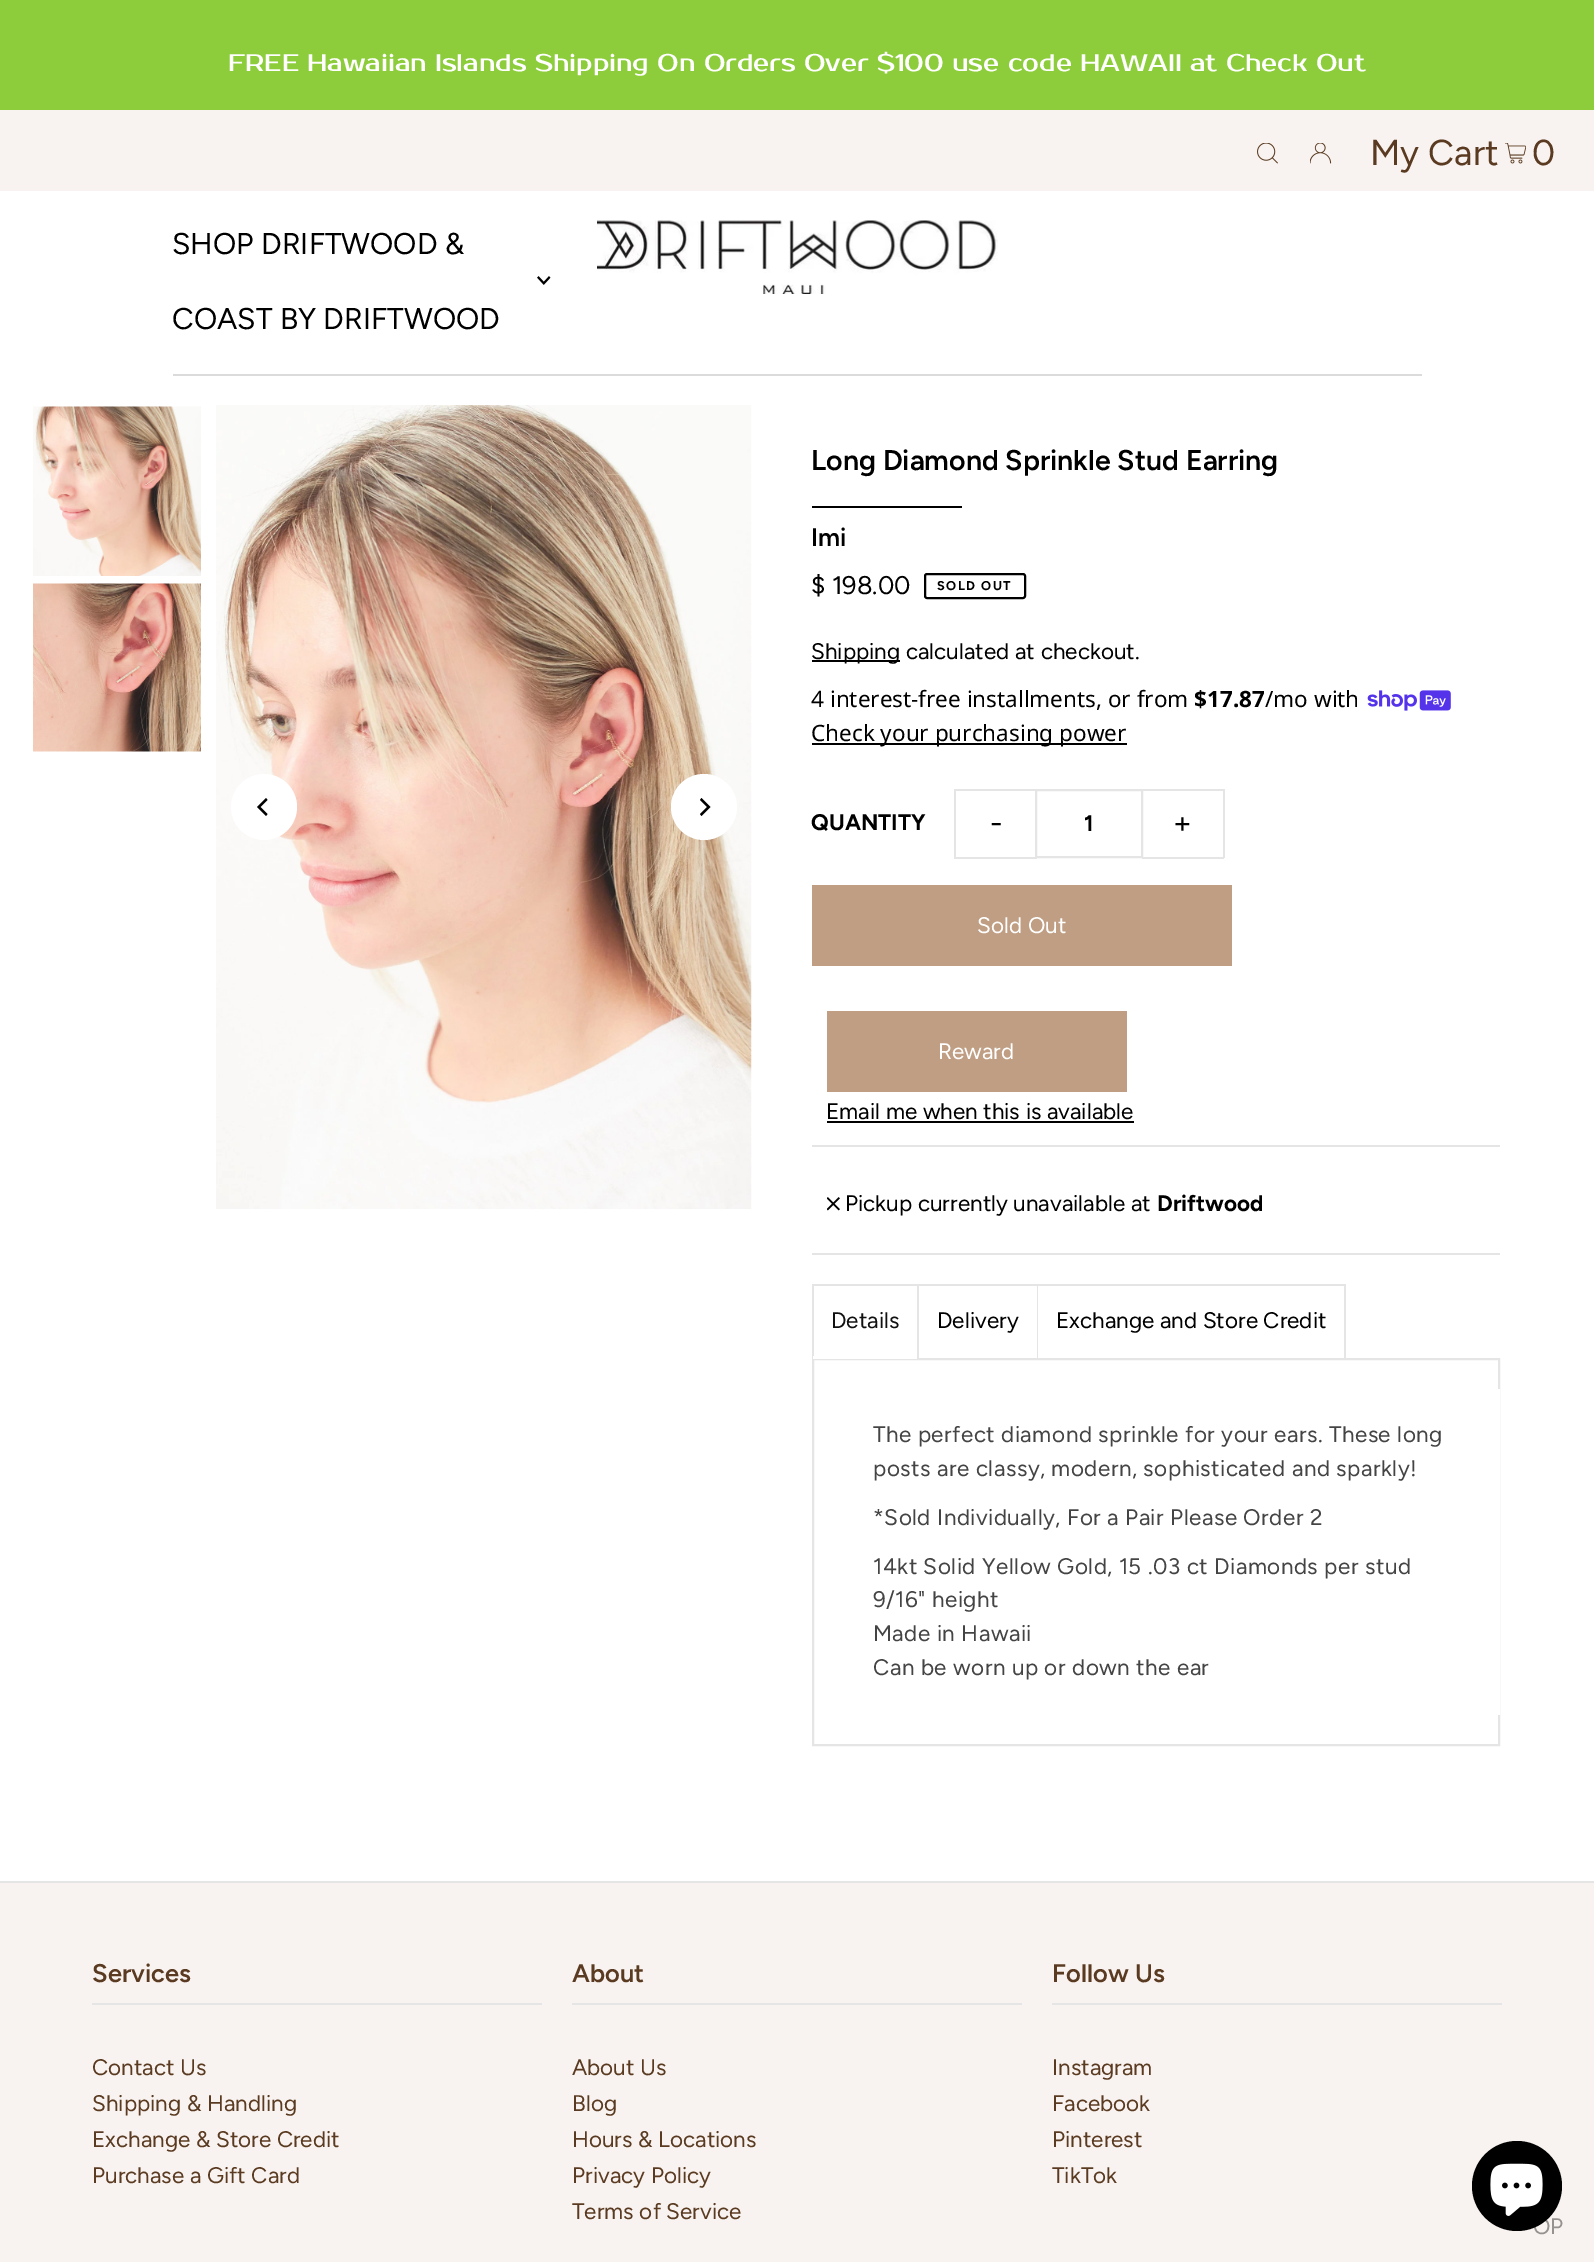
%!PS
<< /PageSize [1594 2262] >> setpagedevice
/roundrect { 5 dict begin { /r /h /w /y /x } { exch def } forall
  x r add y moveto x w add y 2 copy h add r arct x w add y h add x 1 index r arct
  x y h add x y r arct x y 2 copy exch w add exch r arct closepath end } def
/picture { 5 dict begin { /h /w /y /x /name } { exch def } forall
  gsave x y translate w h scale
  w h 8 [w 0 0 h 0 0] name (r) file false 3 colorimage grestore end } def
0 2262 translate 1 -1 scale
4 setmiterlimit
1 setgray
0 0 1594 2262 rectfill
0.553 0.804 0.235 setrgbcolor
0 0 1594 110 rectfill
/ProstoOne-Regular [24 0 0 -24 0 0] selectfont
1 setgray
228 71 moveto (FREE Hawaiian Islands Shipping On Orders Over $100 use code HAWAII at Check Out) show
0.973 0.953 0.941 setrgbcolor
0 110 1594 81 rectfill
(img1.rgb) 1257 143 21 21 picture
(img2.rgb) 1310 143 22 21 picture
/Figtree-Regular [36 0 0 -36 0 0] selectfont
0.353 0.231 0.129 setrgbcolor
1370 165 moveto (My Cart) show
(img3.rgb) 1505 143 21 21 picture
1532 165 moveto (0) show
0.859 setgray
173 374 1249 2 rectfill
/Figtree-Regular [30 0 0 -30 0 0] selectfont
0 setgray
172 254 moveto (SHOP DRIFTWOOD &) show
(img4.rgb) 537 276 14 9 picture
172 329 moveto (COAST BY DRIFTWOOD) show
(img5.rgb) 597 220 401 74 picture
(img6.rgb) 33 406 168 170 picture
(img7.rgb) 33 583 168 169 picture
(img8.rgb) 216 405 536 804 picture
1 setgray
newpath 264 807 33 0 360 arc closepath fill
0 setgray
newpath 257 807 moveto 266 816 lineto 267.5 814 lineto 260.5 807 lineto 267.5 800 lineto 266 798 lineto closepath fill
1 setgray
newpath 704 807 33 0 360 arc closepath fill
0 setgray
newpath 710.5 807 moveto 701.5 798 lineto 700 800 lineto 707 807 lineto 700 814 lineto 701.5 816 lineto closepath fill
/Figtree-SemiBold [28.5 0 0 -28.5 0 0] selectfont
811 470 moveto (Long Diamond Sprinkle Stud Earring) show
812 506 150 2 rectfill
/Figtree-SemiBold [25.5 0 0 -25.5 0 0] selectfont
811 546 moveto (Imi) show
/Figtree-Regular [25.5 0 0 -25.5 0 0] selectfont
811 594 moveto ($ 198.00) show
2 setlinewidth
925 574 100 24 2 roundrect stroke
/Figtree-Bold [12.75 0 0 -12.75 0 0] selectfont
937 590 moveto 1.5 0 (SOLD OUT) ashow
812 660 88 2 rectfill
/Figtree-Regular [22.5 0 0 -22.5 0 0] selectfont
811 659 moveto (Shipping calculated at checkout.) show
/NotoSans-Regular [22.5 0 0 -22.5 0 0] selectfont
811 707 moveto (4 interest-free installments, or from) show
/NotoSans-Bold [22.5 0 0 -22.5 0 0] selectfont
1194 707 moveto ($17.87) show
/NotoSans-Regular [22.5 0 0 -22.5 0 0] selectfont
1265 707 moveto (/mo with) show
(img9.rgb) 1367 690 84 21 picture
812 743 315 2 rectfill
811 741 moveto (Check your purchasing power) show
0.898 setgray
812 1145 688 2 rectfill
/Figtree-Bold [22.5 0 0 -22.5 0 0] selectfont
0 setgray
811 830 moveto (QUANTITY) show
0.898 setgray
954 789 83 2 rectfill
954 857 83 2 rectfill
954 789 2 69 rectfill
/Figtree-Regular [30 0 0 -30 0 0] selectfont
0 setgray
990 833 moveto (-) show
0.898 setgray
1036 790 106 67 rectstroke
/Figtree-Bold [22.5 0 0 -22.5 0 0] selectfont
0 setgray
1084 831 moveto (1) show
0.898 setgray
1142 789 82 2 rectfill
1223 789 2 69 rectfill
1142 857 82 2 rectfill
/Figtree-Regular [30 0 0 -30 0 0] selectfont
0 setgray
1173 833 moveto (+) show
0.753 0.62 0.514 setrgbcolor
812 885 420 81 rectfill
/Figtree-Regular [22.5 0 0 -22.5 0 0] selectfont
1 setgray
977 933 moveto (Sold Out) show
0.753 0.62 0.514 setrgbcolor
827 1011 300 81 rectfill
1 setgray
938 1059 moveto (Reward) show
0 setgray
826 1119 moveto (Email me when this is available) show
827 1121 307 2 rectfill
0.898 setgray
812 1253 688 2 rectfill
(img10.rgb) 827 1197 13 14 picture
0 setgray
845 1211 moveto (Pickup currently unavailable at) show
/Figtree-Bold [22.5 0 0 -22.5 0 0] selectfont
1157 1211 moveto (Driftwood) show
0.898 setgray
812 1284 534 2 rectfill
917 1284 2 74 rectfill
812 1284 2 74 rectfill
/Figtree-Regular [22.5 0 0 -22.5 0 0] selectfont
0.067 setgray
831 1328 moveto (Details) show
0.898 setgray
813 1359 686 386 rectstroke
1 setgray
813 1356 104 3 rectfill
0.898 setgray
1037 1284 1 74 rectfill
0 setgray
937 1328 moveto (Delivery) show
0.898 setgray
1344 1284 2 74 rectfill
0 setgray
1056 1328 moveto (Exchange and Store Credit) show
1 setgray
1498 1389 2 326 rectfill
0.267 setgray
873 1442 moveto 0.45 0 (The perfect diamond sprinkle for your ears. These long) ashow
873 1476 moveto 0.45 0 (posts are classy, modern, sophisticated and sparkly!) ashow
873 1525 moveto 0.45 0 (*Sold Individually, For a Pair Please Order 2) ashow
873 1574 moveto 0.45 0 (14kt Solid Yellow Gold, 15 .03 ct Diamonds per stud) ashow
873 1607 moveto 0.45 0 (9/16" height) ashow
873 1641 moveto 0.45 0 (Made in Hawaii) ashow
873 1675 moveto 0.45 0 (Can be worn up or down the ear) ashow
0.973 0.953 0.941 setrgbcolor
0 1883 1594 379 rectfill
0.898 setgray
0 1881 1594 2 rectfill
92 2003 450 2 rectfill
/Figtree-SemiBold [25.5 0 0 -25.5 0 0] selectfont
0.353 0.231 0.129 setrgbcolor
92 1982 moveto (Services) show
/Figtree-Regular [22.5 0 0 -22.5 0 0] selectfont
92 2075 moveto (Contact Us) show
92 2111 moveto (Shipping & Handling) show
92 2147 moveto (Exchange & Store Credit) show
92 2183 moveto (Purchase a Gift Card) show
0.898 setgray
572 2003 450 2 rectfill
/Figtree-SemiBold [25.5 0 0 -25.5 0 0] selectfont
0.353 0.231 0.129 setrgbcolor
572 1982 moveto (About) show
/Figtree-Regular [22.5 0 0 -22.5 0 0] selectfont
572 2075 moveto (About Us) show
572 2111 moveto (Blog) show
572 2147 moveto (Hours & Locations) show
572 2183 moveto (Privacy Policy) show
572 2219 moveto (Terms of Service) show
0.898 setgray
1052 2003 450 2 rectfill
/Figtree-SemiBold [25.5 0 0 -25.5 0 0] selectfont
0.353 0.231 0.129 setrgbcolor
1052 1982 moveto (Follow Us) show
/Figtree-Regular [22.5 0 0 -22.5 0 0] selectfont
1052 2075 moveto (Instagram) show
1052 2111 moveto (Facebook) show
1052 2147 moveto (Pinterest) show
1052 2183 moveto (TikTok) show
0.584 0.573 0.565 setrgbcolor
1533 2234 moveto (OP) show
0 setgray
newpath 1517 2186 45 0 360 arc closepath fill
(img11.rgb) 1490 2163 53 53 picture
showpage
